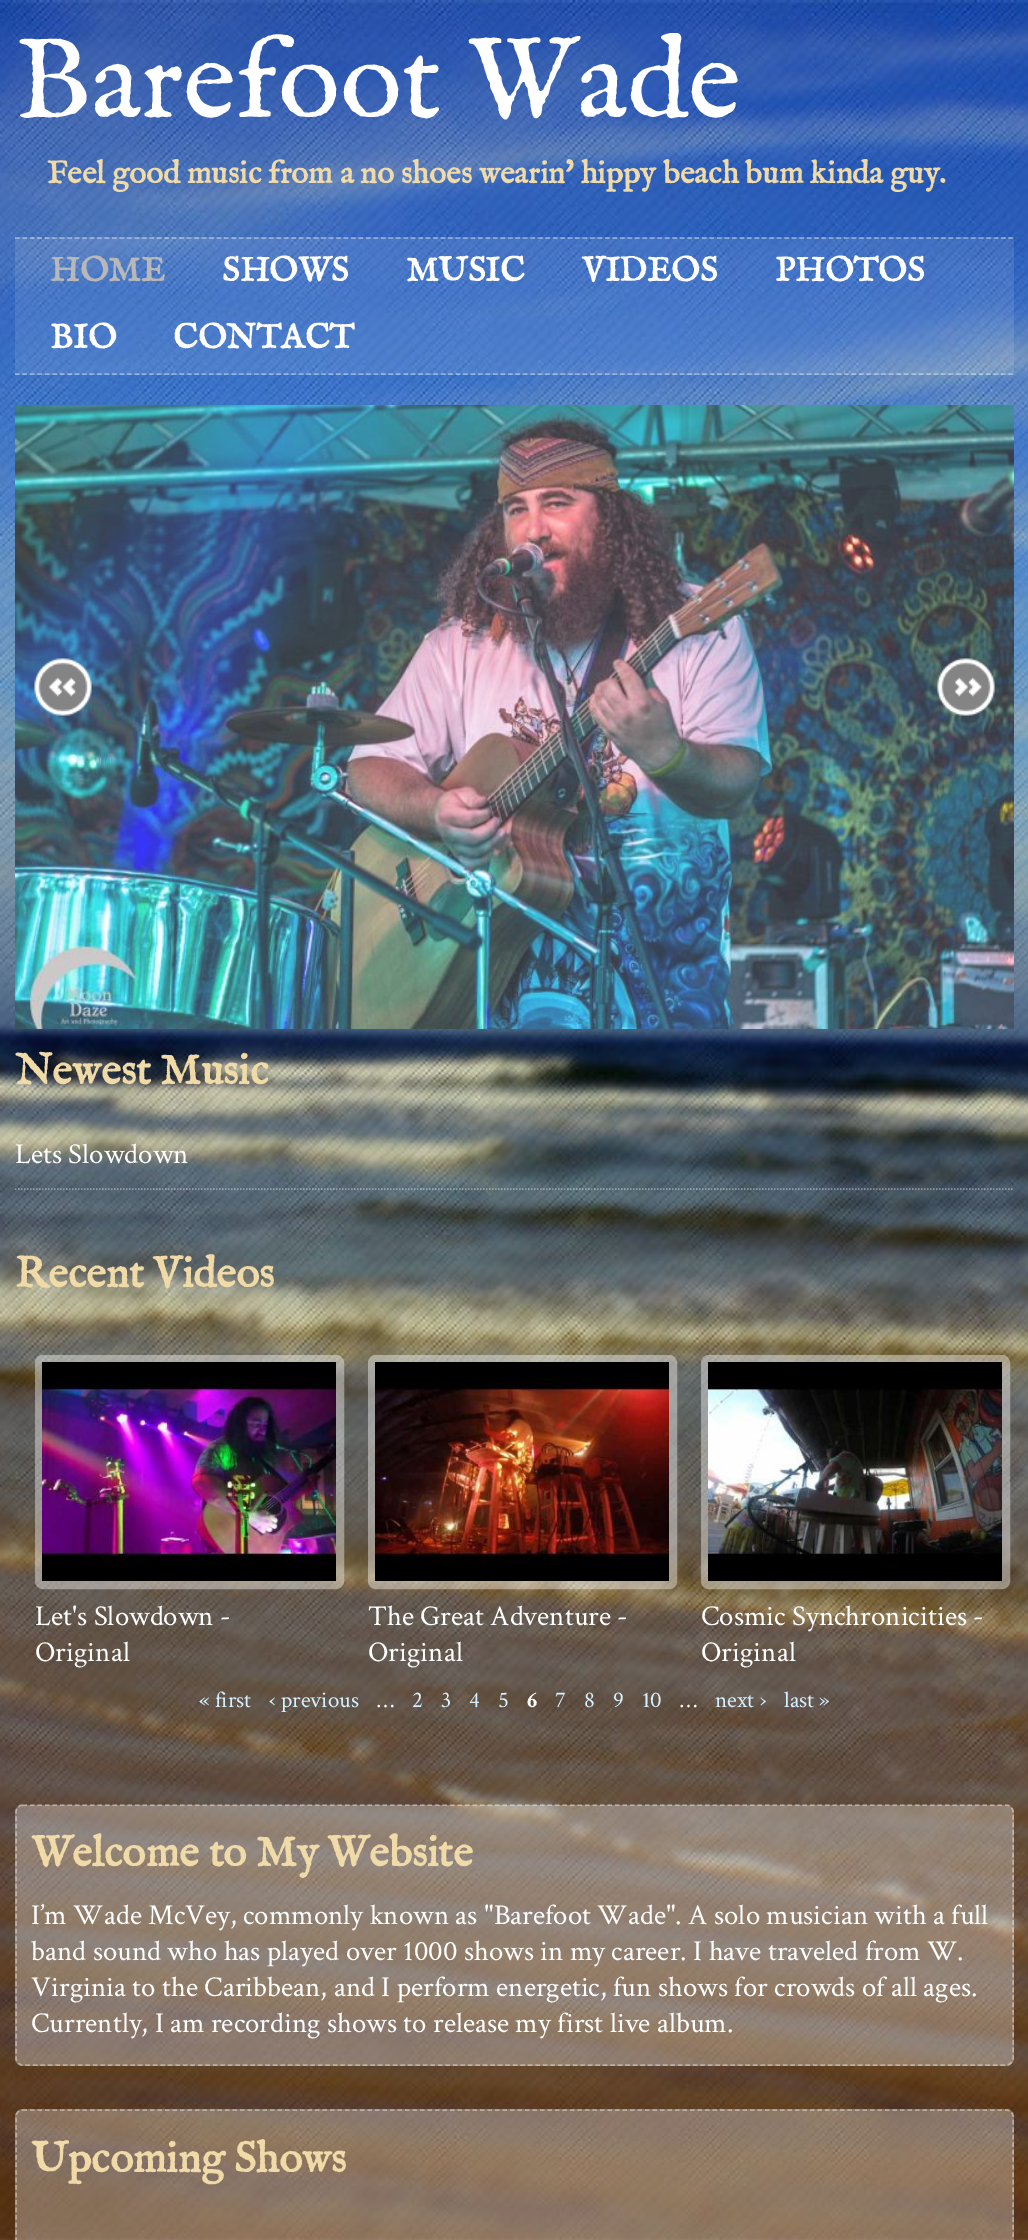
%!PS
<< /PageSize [1028 2240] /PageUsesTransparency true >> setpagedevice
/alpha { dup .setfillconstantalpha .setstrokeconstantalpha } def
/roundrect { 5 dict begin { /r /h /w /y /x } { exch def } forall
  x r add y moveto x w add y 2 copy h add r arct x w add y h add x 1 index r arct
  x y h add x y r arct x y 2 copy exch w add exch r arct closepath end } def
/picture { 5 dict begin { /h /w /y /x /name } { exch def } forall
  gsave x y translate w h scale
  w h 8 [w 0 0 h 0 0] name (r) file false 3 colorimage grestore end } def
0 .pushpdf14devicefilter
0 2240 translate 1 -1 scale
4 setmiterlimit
1 setgray
0 0 1028 2240 rectfill
(img1.rgb) 0 0 1028 2240 picture
/IMFELLEnglish-Regular [115.25 0 0 -115.25 0 0] selectfont
15 117 moveto (Barefoot Wade) show
/IMFELLEnglish-Bold [31.7 0 0 -31.7 0 0] selectfont
0.941 0.859 0.659 setrgbcolor
47 183 moveto (Feel good music from a no shoes wearin' hippy beach bum kinda guy.) show
0.1 alpha
1 setgray
15 237 999 138 rectfill
0.4 alpha
1.5 setlinewidth
[4.5 2.97] 0 setdash
newpath 15 238 moveto 1014 238 lineto stroke
newpath 15 374 moveto 1014 374 lineto stroke
/IMFELLEnglish-Bold [34.5 0 0 -34.5 0 0] selectfont
1 alpha
0.722 setgray
50 281 moveto (HOME) show
1 setgray
222 281 moveto (SHOWS) show
406 281 moveto (MUSIC) show
582 281 moveto (VIDEOS) show
775 281 moveto (PHOTOS) show
50 348 moveto (BIO) show
173 348 moveto (CONTACT) show
(img2.rgb) 15 405 999 624 picture
(img3.rgb) 34 658 58 58 picture
(img4.rgb) 937 658 58 58 picture
/IMFELLEnglish-Bold [43.25 0 0 -43.25 0 0] selectfont
0.941 0.859 0.659 setrgbcolor
15 1084 moveto (Newest Music) show
0.4 alpha
1 setgray
[1.5 1.5] 0 setdash
newpath 15 1189 moveto 1014 1189 lineto stroke
/CrimsonText-Regular [28.8 0 0 -28.8 0 0] selectfont
1 alpha
15 1163 moveto (Lets Slowdown) show
/IMFELLEnglish-Bold [43.25 0 0 -43.25 0 0] selectfont
0.941 0.859 0.659 setrgbcolor
15 1287 moveto (Recent Videos) show
0.4 alpha
1 setgray
8 setlinewidth
[] 0 setdash
39 1359 301 226 4 roundrect stroke
1 alpha
(img5.rgb) 42 1362 294 219 picture
/CrimsonText-Regular [28.8 0 0 -28.8 0 0] selectfont
35 1625 moveto (Let's Slowdown -) show
35 1661 moveto (Original) show
0.4 alpha
372 1359 301 226 4 roundrect stroke
1 alpha
(img6.rgb) 375 1362 294 219 picture
368 1625 moveto (The Great Adventure -) show
368 1661 moveto (Original) show
0.4 alpha
705 1359 301 226 4 roundrect stroke
1 alpha
(img7.rgb) 708 1362 294 219 picture
701 1625 moveto (Cosmic Synchronicities -) show
701 1661 moveto (Original) show
/CrimsonText-Regular [23 0 0 -23 0 0] selectfont
0.839 0.941 1 setrgbcolor
199 1707 moveto (« first) show
269 1707 moveto (‹ previous) show
1 setgray
377 1707 moveto (…) show
0.839 0.941 1 setrgbcolor
412 1707 moveto (2) show
441 1707 moveto (3) show
469 1707 moveto (4) show
498 1707 moveto (5) show
/CrimsonText-Bold [23 0 0 -23 0 0] selectfont
1 setgray
527 1707 moveto (6) show
/CrimsonText-Regular [23 0 0 -23 0 0] selectfont
0.839 0.941 1 setrgbcolor
555 1707 moveto (7) show
584 1707 moveto (8) show
613 1707 moveto (9) show
642 1707 moveto (10) show
1 setgray
680 1707 moveto (…) show
0.839 0.941 1 setrgbcolor
715 1707 moveto (next ›) show
784 1707 moveto (last ») show
0.3 alpha
1 setgray
15 1805 999 261 8 roundrect fill
0.4 alpha
1.5 setlinewidth
[4.5 3] 0 setdash
newpath 22.5 1805 moveto 1006.5 1805 lineto 1010 1805 1013 1808.5 1013 1812 curveto 1013 2058 lineto 1013 2061.5 1010 2065 1006.5 2065 curveto 22.5 2065 lineto 19 2065 16 2061.5 16 2058 curveto 16 1812 lineto 16 1808.5 19 1805 22.5 1805 curveto closepath stroke
/IMFELLEnglish-Bold [43.25 0 0 -43.25 0 0] selectfont
1 alpha
0.941 0.859 0.659 setrgbcolor
31 1866 moveto (Welcome to My Website) show
/CrimsonText-Regular [28.8 0 0 -28.8 0 0] selectfont
1 setgray
31 1924 moveto (I’m Wade McVey, commonly known as "Barefoot Wade". A solo musician with a full) show
31 1960 moveto (band sound who has played over 1000 shows in my career. I have traveled from W.) show
31 1996 moveto (Virginia to the Caribbean, and I perform energetic, fun shows for crowds of all ages.) show
31 2032 moveto (Currently, I am recording shows to release my first live album.) show
0.3 alpha
15 2109 999 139 8 roundrect fill
0.4 alpha
newpath 22.5 2110 moveto 1006.5 2110 lineto 1010 2110 1013 2113 1013 2116.5 curveto 1013 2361 lineto 1013 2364.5 1010 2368 1006.5 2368 curveto 22.5 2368 lineto 19 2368 16 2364.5 16 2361 curveto 16 2116.5 lineto 16 2113 19 2110 22.5 2110 curveto closepath stroke
/IMFELLEnglish-Bold [43.25 0 0 -43.25 0 0] selectfont
1 alpha
0.941 0.859 0.659 setrgbcolor
31 2172 moveto (Upcoming Shows) show
.poppdf14devicefilter showpage
